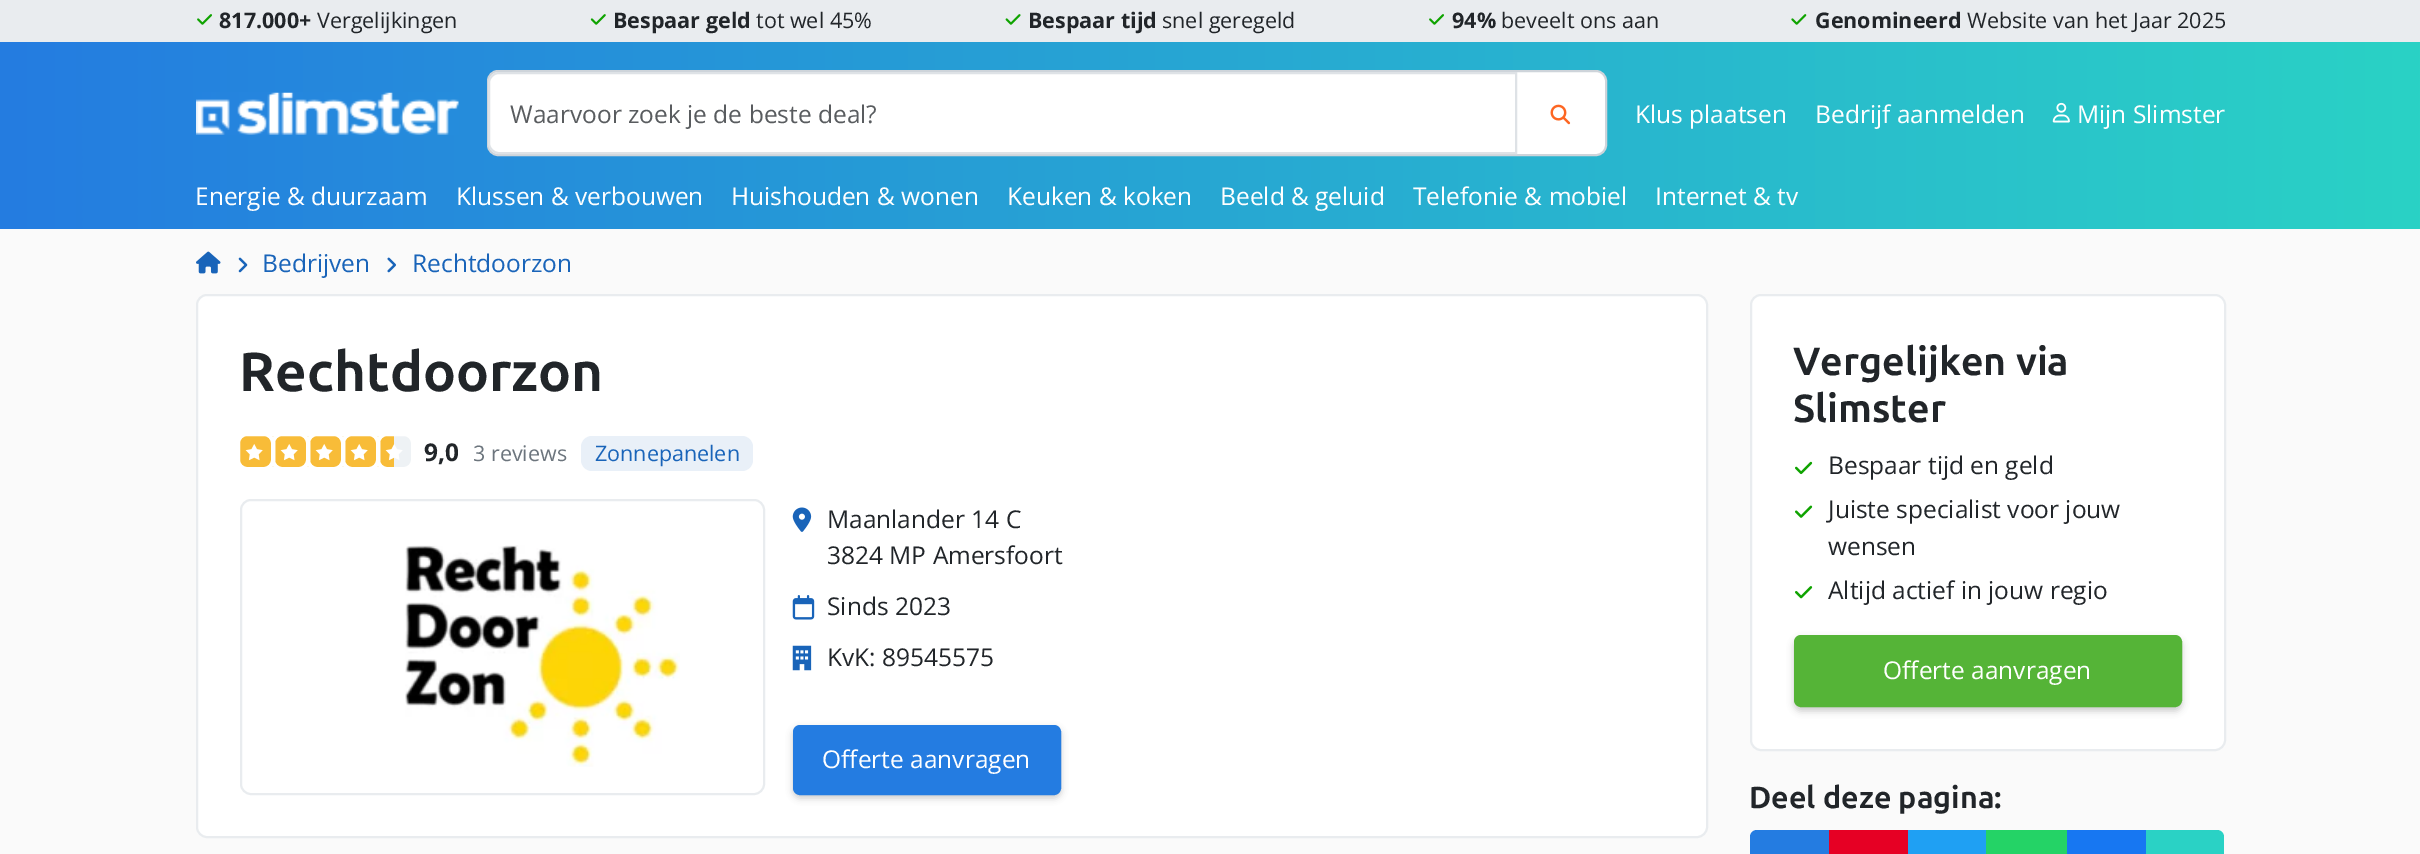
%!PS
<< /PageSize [2420 854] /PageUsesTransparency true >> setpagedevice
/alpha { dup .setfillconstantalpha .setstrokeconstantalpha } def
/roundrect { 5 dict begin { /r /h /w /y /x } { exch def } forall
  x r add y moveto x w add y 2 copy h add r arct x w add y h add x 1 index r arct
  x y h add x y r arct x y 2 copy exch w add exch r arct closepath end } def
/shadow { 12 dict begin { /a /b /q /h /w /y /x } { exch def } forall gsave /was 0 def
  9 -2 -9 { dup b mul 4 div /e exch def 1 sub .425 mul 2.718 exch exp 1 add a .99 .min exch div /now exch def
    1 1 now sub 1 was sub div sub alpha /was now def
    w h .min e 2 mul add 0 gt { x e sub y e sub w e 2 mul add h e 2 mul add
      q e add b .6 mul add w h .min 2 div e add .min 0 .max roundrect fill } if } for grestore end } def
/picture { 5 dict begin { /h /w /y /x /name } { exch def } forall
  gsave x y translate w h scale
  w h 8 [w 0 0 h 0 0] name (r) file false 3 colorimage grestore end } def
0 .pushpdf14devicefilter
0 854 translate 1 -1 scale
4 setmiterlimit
0.98 setgray
0 0 2420 854 rectfill
gsave newpath 0 42 moveto 2420 42 lineto 2420 229 lineto 0 229 lineto closepath clip newpath
<< /ShadingType 2 /ColorSpace /DeviceRGB /Coords [0 115 2420 115] /Extend [true true] /Function << /FunctionType 2 /Domain [0 1] /C0 [0.141 0.486 0.882] /C1 [0.165 0.824 0.773] /N 1 >> >> shfill grestore
0.914 0.925 0.937 setrgbcolor
0 0 2420 42 rectfill
(img1.rgb) 197 14 15 11 picture
/OpenSans-Bold [21.5 0 0 -21.5 0 0] selectfont
0.129 0.145 0.161 setrgbcolor
219 28 moveto (817.000+) show
/OpenSans-Regular [21.5 0 0 -21.5 0 0] selectfont
317 28 moveto (Vergelijkingen) show
(img2.rgb) 590 14 16 11 picture
/OpenSans-Bold [21.5 0 0 -21.5 0 0] selectfont
613 28 moveto (Bespaar geld) show
/OpenSans-Regular [21.5 0 0 -21.5 0 0] selectfont
756 28 moveto (tot wel 45%) show
(img3.rgb) 1005 14 16 11 picture
/OpenSans-Bold [21.5 0 0 -21.5 0 0] selectfont
1028 28 moveto (Bespaar tijd) show
/OpenSans-Regular [21.5 0 0 -21.5 0 0] selectfont
1162 28 moveto (snel geregeld) show
(img1.rgb) 1429 14 15 11 picture
/OpenSans-Bold [21.5 0 0 -21.5 0 0] selectfont
1452 28 moveto (94%) show
/OpenSans-Regular [21.5 0 0 -21.5 0 0] selectfont
1501 28 moveto (beveelt ons aan) show
(img4.rgb) 1791 14 16 11 picture
/OpenSans-Bold [21.5 0 0 -21.5 0 0] selectfont
1815 28 moveto (Genomineerd) show
/OpenSans-Regular [21.5 0 0 -21.5 0 0] selectfont
1967 28 moveto (Website van het Jaar 2025) show
(img5.rgb) 196 92 263 43 picture
1 setgray
488 71 1118 84 10 roundrect gsave fill grestore
0.808 0.831 0.855 setrgbcolor
2 setlinewidth
stroke
0.871 0.886 0.902 setrgbcolor
newpath 499 73 moveto 1516 73 lineto 1516 153 lineto 499 153 lineto 493.5 153 489 148.5 489 143 curveto 489 83 lineto 489 77.5 493.5 73 499 73 curveto closepath stroke
/OpenSans-Regular [24.5 0 0 -24.5 0 0] selectfont
0.349 0.361 0.373 setrgbcolor
510 123 moveto (Waarvoor zoek je de beste deal?) show
(img6.rgb) 1550 104 21 21 picture
1 setgray
1635 123 moveto (Klus plaatsen) show
1815 123 moveto (Bedrijf aanmelden) show
(img7.rgb) 2052 102 18 21 picture
2077 123 moveto (Mijn Slimster) show
195 205 moveto (Energie & duurzaam) show
456 205 moveto (Klussen & verbouwen) show
731 205 moveto (Huishouden & wonen) show
1007 205 moveto (Keuken & koken) show
1220 205 moveto (Beeld & geluid) show
1413 205 moveto (Telefonie & mobiel) show
1655 205 moveto (Internet & tv) show
(img8.rgb) 196 251 25 23 picture
(img9.rgb) 238 257 10 16 picture
0.098 0.392 0.725 setrgbcolor
262 272 moveto (Bedrijven) show
(img10.rgb) 387 257 9 16 picture
412 272 moveto (Rechtdoorzon) show
1 setgray
197 295 1510 542 10 roundrect gsave fill grestore
0.914 0.925 0.937 setrgbcolor
stroke
/Ubuntu-Bold [55 0 0 -55 0 0] selectfont
0.129 0.145 0.161 setrgbcolor
239 391 moveto (Rechtdoorzon) show
0.973 0.737 0.22 setrgbcolor
240 436 154 31 rectfill
0.933 0.949 0.961 setrgbcolor
394 436 17 31 rectfill
(img11.rgb) 245 444 18 17 picture
1 setgray
4 setlinewidth
238 434 35 35 9 roundrect stroke
(img11.rgb) 280 444 18 17 picture
273 434 35 35 9 roundrect stroke
(img11.rgb) 315 444 18 17 picture
308 434 35 35 9 roundrect stroke
(img11.rgb) 350 444 18 17 picture
343 434 35 35 9 roundrect stroke
(img12.rgb) 385 444 18 17 picture
378 434 35 35 9 roundrect stroke
/OpenSans-Bold [24.5 0 0 -24.5 0 0] selectfont
0.129 0.145 0.161 setrgbcolor
424 461 moveto (9,0) show
/OpenSans-Regular [21.5 0 0 -21.5 0 0] selectfont
0.424 0.459 0.49 setrgbcolor
473 461 moveto (3 reviews) show
0.914 0.941 0.973 setrgbcolor
581 436 172 35 11 roundrect fill
0.098 0.392 0.725 setrgbcolor
595 461 moveto (Zonnepanelen) show
0.914 0.925 0.937 setrgbcolor
2 setlinewidth
241 500 523 294 10 roundrect stroke
(img13.rgb) 405 545 275 222 picture
(img14.rgb) 792 507 20 25 picture
/OpenSans-Regular [24.5 0 0 -24.5 0 0] selectfont
0.129 0.145 0.161 setrgbcolor
827 528 moveto (Maanlander 14 C) show
827 564 moveto (3824 MP Amersfoort) show
(img15.rgb) 792 595 23 25 picture
827 615 moveto (Sinds 2023) show
(img16.rgb) 792 645 20 26 picture
827 666 moveto (KvK: 89545575) show
0 setgray
793 728 268 70 7 3.5 0.2 shadow
0.141 0.486 0.882 setrgbcolor
794 726 266 68 6 roundrect gsave fill grestore
stroke
1 setgray
822 768 moveto (Offerte aanvragen) show
1751 295 474 455 10 roundrect gsave fill grestore
0.914 0.925 0.937 setrgbcolor
stroke
/Ubuntu-Bold [39.25 0 0 -39.25 0 0] selectfont
0.129 0.145 0.161 setrgbcolor
1793 375 moveto (Vergelijken via) show
1793 422 moveto (Slimster) show
(img17.rgb) 1795 461 18 14 picture
/OpenSans-Regular [24.5 0 0 -24.5 0 0] selectfont
1828 474 moveto (Bespaar tijd en geld) show
(img18.rgb) 1795 505 18 13 picture
1828 518 moveto (Juiste specialist voor jouw) show
1828 555 moveto (wensen) show
(img19.rgb) 1795 586 18 13 picture
1828 599 moveto (Altijd actief in jouw regio) show
0 setgray
1794 639 388 72 7 3.5 0.2 shadow
0.333 0.706 0.216 setrgbcolor
1795 636 386 70 6 roundrect gsave fill grestore
stroke
1 setgray
1883 679 moveto (Offerte aanvragen) show
/Ubuntu-Bold [30.5 0 0 -30.5 0 0] selectfont
0.129 0.145 0.161 setrgbcolor
1749 808 moveto (Deel deze pagina:) show
0.141 0.486 0.882 setrgbcolor
newpath 1757 830 moveto 1829 830 lineto 1829 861 lineto 1757 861 lineto 1753 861 1750 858 1750 854 curveto 1750 837 lineto 1750 833 1753 830 1757 830 curveto closepath fill
0.902 0 0.141 setrgbcolor
1829 830 79 24 rectfill
0.122 0.627 0.953 setrgbcolor
1908 830 78 24 rectfill
0.141 0.827 0.4 setrgbcolor
1986 830 81 24 rectfill
0.09 0.467 0.949 setrgbcolor
2067 830 79 24 rectfill
0.165 0.824 0.773 setrgbcolor
newpath 2146 830 moveto 2217 830 lineto 2221 830 2224 833 2224 837 curveto 2224 854 lineto 2224 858 2221 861 2217 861 curveto 2146 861 lineto closepath fill
.poppdf14devicefilter showpage
